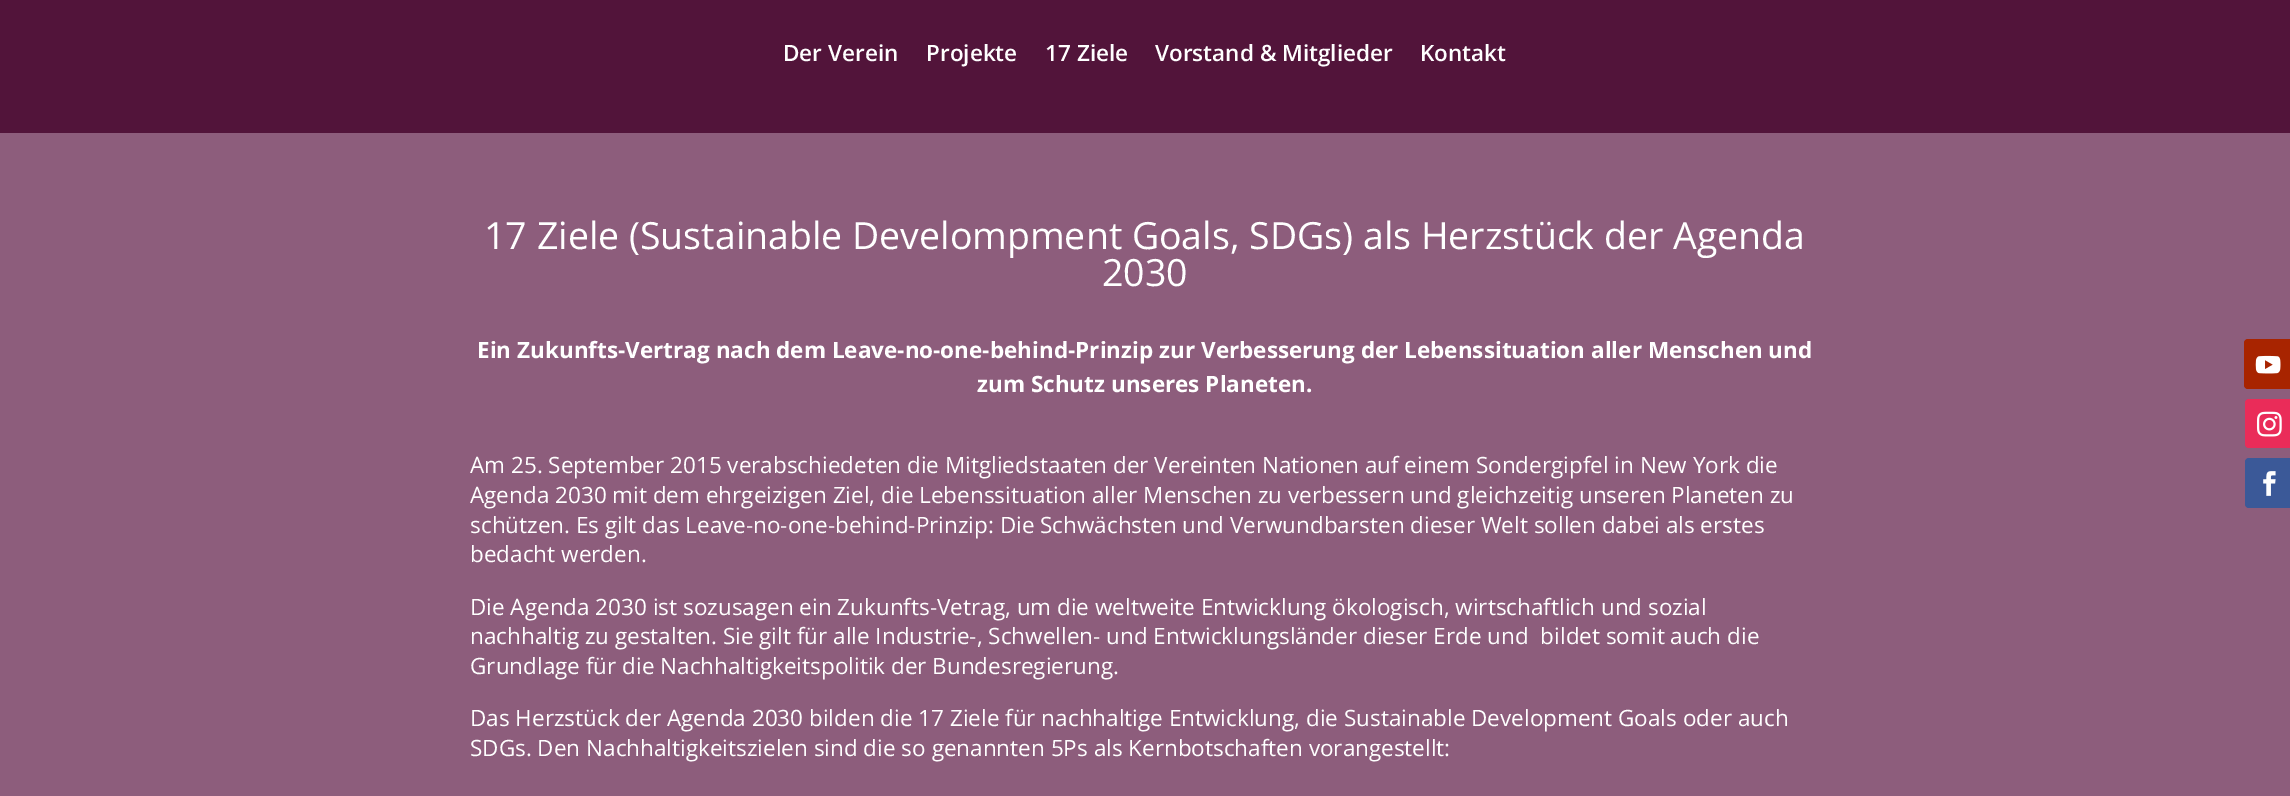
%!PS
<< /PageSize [2290 796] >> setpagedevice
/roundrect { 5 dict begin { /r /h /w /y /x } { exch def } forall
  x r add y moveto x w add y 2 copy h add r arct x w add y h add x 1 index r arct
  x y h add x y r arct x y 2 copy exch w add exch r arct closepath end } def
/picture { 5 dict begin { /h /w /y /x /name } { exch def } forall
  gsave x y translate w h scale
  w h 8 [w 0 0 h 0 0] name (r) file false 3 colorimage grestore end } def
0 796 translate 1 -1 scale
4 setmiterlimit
0.553 0.365 0.486 setrgbcolor
0 0 2290 796 rectfill
0.322 0.078 0.227 setrgbcolor
0 0 2290 133 rectfill
/OpenSans-SemiBold [22.5 0 0 -22.5 0 0] selectfont
1 setgray
783 61 moveto (Der Verein) show
926 61 moveto (Projekte) show
1045 61 moveto (17 Ziele) show
1155 61 moveto (Vorstand & Mitglieder) show
1420 61 moveto (Kontakt) show
0.659 0.141 0 setrgbcolor
2244 339 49 50 4 roundrect fill
(img1.rgb) 2255 355 26 19 picture
0.918 0.173 0.349 setrgbcolor
2245 399 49 49 4 roundrect fill
(img2.rgb) 2256 411 26 26 picture
0.231 0.349 0.596 setrgbcolor
2245 458 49 50 4 roundrect fill
(img3.rgb) 2263 471 13 25 picture
/OpenSans-Regular [37.5 0 0 -37.5 0 0] selectfont
1 setgray
484 249 moveto (17 Ziele \(Sustainable Develompment Goals, SDGs\) als Herzstück der Agenda) show
1102 286 moveto (2030) show
/OpenSans-Bold [22.5 0 0 -22.5 0 0] selectfont
477 358 moveto (Ein Zukunfts-Vertrag nach dem Leave-no-one-behind-Prinzip zur Verbesserung der Lebenssituation aller Menschen und) show
977 392 moveto (zum Schutz unseres Planeten.) show
/OpenSans-Regular [22.5 0 0 -22.5 0 0] selectfont
470 473 moveto (Am 25. September 2015 verabschiedeten die Mitgliedstaaten der Vereinten Nationen auf einem Sondergipfel in New York die) show
470 503 moveto (Agenda 2030 mit dem ehrgeizigen Ziel, die Lebenssituation aller Menschen zu verbessern und gleichzeitig unseren Planeten zu) show
470 533 moveto (schützen. Es gilt das Leave-no-one-behind-Prinzip: Die Schwächsten und Verwundbarsten dieser Welt sollen dabei als erstes) show
470 562 moveto (bedacht werden.) show
470 615 moveto (Die Agenda 2030 ist sozusagen ein Zukunfts-Vetrag, um die weltweite Entwicklung ökologisch, wirtschaftlich und sozial) show
470 644 moveto (nachhaltig zu gestalten. Sie gilt für alle Industrie-, Schwellen- und Entwicklungsländer dieser Erde und  bildet somit auch die) show
470 674 moveto (Grundlage für die Nachhaltigkeitspolitik der Bundesregierung.) show
470 726 moveto (Das Herzstück der Agenda 2030 bilden die 17 Ziele für nachhaltige Entwicklung, die Sustainable Development Goals oder auch) show
470 756 moveto (SDGs. Den Nachhaltigkeitszielen sind die so genannten 5Ps als Kernbotschaften vorangestellt:) show
showpage
